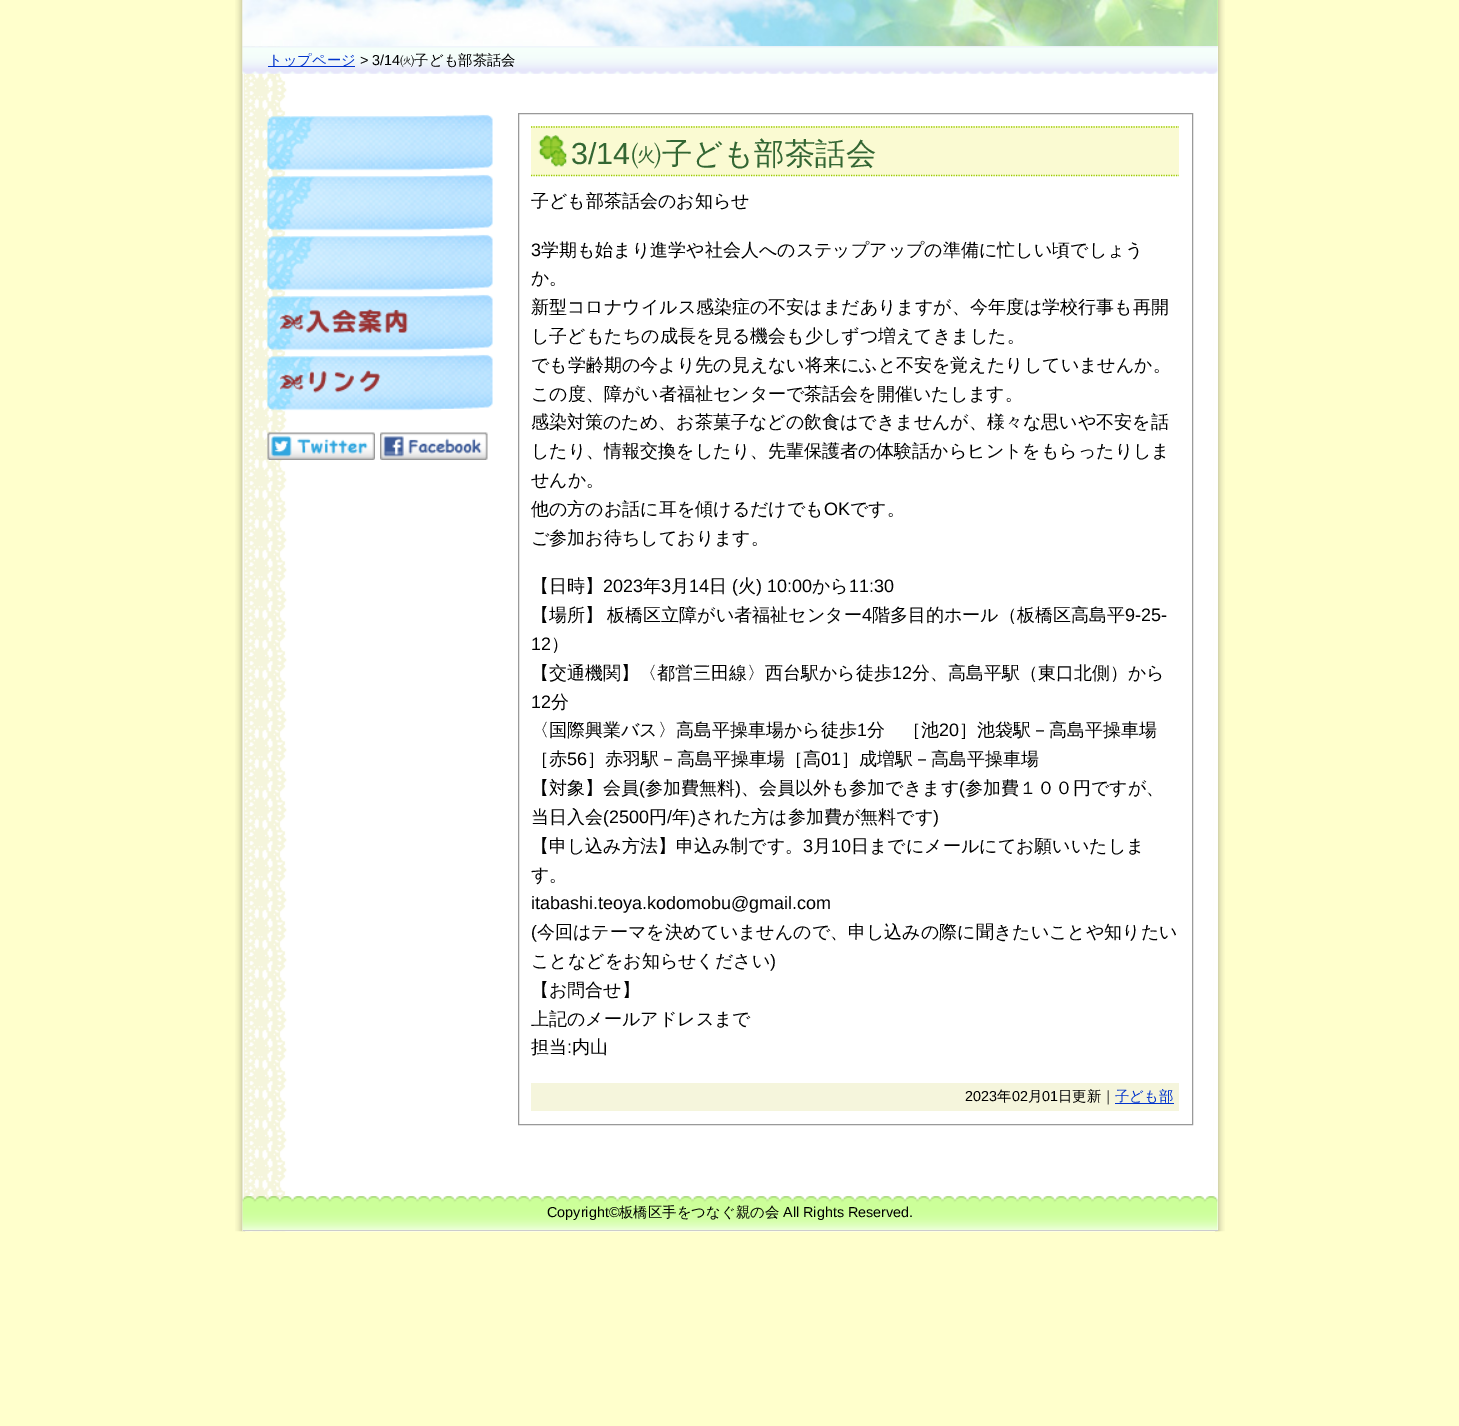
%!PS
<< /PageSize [1459 1426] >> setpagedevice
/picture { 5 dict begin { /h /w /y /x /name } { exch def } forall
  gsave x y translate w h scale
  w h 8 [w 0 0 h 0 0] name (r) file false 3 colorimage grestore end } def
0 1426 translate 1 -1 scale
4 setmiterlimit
1 1 0.8 setrgbcolor
0 0 1459 1426 rectfill
(img1.rgb) 235 0 990 1232 picture
1 setgray
1214 46 4 1184 rectfill
(img2.rgb) 242 0 951 1232 picture
0.8 setgray
243 1230 975 1 rectfill
0.8 1 0.6 setrgbcolor
1217 0 1 46 rectfill
(img3.rgb) 242 0 976 47 picture
(img4.rgb) 242 46 976 28 picture
0 0.2 0.8 setrgbcolor
268 66 87 1 rectfill
/WenQuanYiZenHei-Medium [14.4 0 0 -14.4 0 0] selectfont
268 65 moveto (トップページ) show
/LiberationSans-Regular [14.4 0 0 -14.4 0 0] selectfont
0 setgray
360 65 moveto (> 3/14) show
/WenQuanYiZenHei-Medium [14.4 0 0 -14.4 0 0] selectfont
400 65 moveto (㈫子ども部茶話会) show
(img5.rgb) 267 114 226 57 picture
(img6.rgb) 267 174 226 57 picture
(img7.rgb) 267 234 226 57 picture
(img8.rgb) 267 294 226 57 picture
(img9.rgb) 279 308 129 26 picture
(img10.rgb) 267 354 226 57 picture
(img11.rgb) 279 370 102 23 picture
(img12.rgb) 267 432 108 28 picture
(img13.rgb) 380 432 108 28 picture
0.6 setgray
518.5 113.5 674 1011 rectstroke
0.98 0.98 0.824 setrgbcolor
531 126 648 50 rectfill
(img14.rgb) 538 135 29 32 picture
0.6 0.8 0 setrgbcolor
1.2 setlinewidth
[1.25 1.25] 0 setdash
newpath 531 127 moveto 1179 127 lineto stroke
newpath 531 175.5 moveto 1179 175.5 lineto stroke
/LiberationSans-Regular [30.5 0 0 -30.5 0 0] selectfont
0.2 0.4 0.2 setrgbcolor
571 164 moveto (3/14) show
/WenQuanYiZenHei-Medium [30.5 0 0 -30.5 0 0] selectfont
631 164 moveto (㈫子ども部茶話会) show
/WenQuanYiZenHei-Medium [18 0 0 -18 0 0] selectfont
0 setgray
531 207 moveto (子ども部茶話会のお知らせ) show
/LiberationSans-Regular [18 0 0 -18 0 0] selectfont
531 256 moveto (3) show
/WenQuanYiZenHei-Medium [18 0 0 -18 0 0] selectfont
541 256 moveto (学期も始まり進学や社会人へのステップアップの準備に忙しい頃でしょう) show
531 284 moveto (か。) show
531 313 moveto (新型コロナウイルス感染症の不安はまだありますが、今年度は学校行事も再開) show
531 342 moveto (し子どもたちの成長を見る機会も少しずつ増えてきました。) show
531 371 moveto (でも学齢期の今より先の見えない将来にふと不安を覚えたりしていませんか。) show
531 400 moveto (この度、障がい者福祉センターで茶話会を開催いたします。) show
531 428 moveto (感染対策のため、お茶菓子などの飲食はできませんが、様々な思いや不安を話) show
531 457 moveto (したり、情報交換をしたり、先輩保護者の体験話からヒントをもらったりしま) show
531 486 moveto (せんか。) show
531 515 moveto (他の方のお話に耳を傾けるだけでも) show
/LiberationSans-Regular [18 0 0 -18 0 0] selectfont
824 515 moveto (OK) show
/WenQuanYiZenHei-Medium [18 0 0 -18 0 0] selectfont
850 515 moveto (です。) show
531 544 moveto (ご参加お待ちしております。) show
531 592 moveto (【日時】) show
/LiberationSans-Regular [18 0 0 -18 0 0] selectfont
603 592 moveto (2023) show
/WenQuanYiZenHei-Medium [18 0 0 -18 0 0] selectfont
643 592 moveto (年) show
/LiberationSans-Regular [18 0 0 -18 0 0] selectfont
661 592 moveto (3) show
/WenQuanYiZenHei-Medium [18 0 0 -18 0 0] selectfont
671 592 moveto (月) show
/LiberationSans-Regular [18 0 0 -18 0 0] selectfont
689 592 moveto (14) show
/WenQuanYiZenHei-Medium [18 0 0 -18 0 0] selectfont
709 592 moveto (日) show
/LiberationSans-Regular [18 0 0 -18 0 0] selectfont
732 592 moveto (\() show
/WenQuanYiZenHei-Medium [18 0 0 -18 0 0] selectfont
738 592 moveto (火) show
/LiberationSans-Regular [18 0 0 -18 0 0] selectfont
756 592 moveto (\) 10:00) show
/WenQuanYiZenHei-Medium [18 0 0 -18 0 0] selectfont
812 592 moveto (から) show
/LiberationSans-Regular [18 0 0 -18 0 0] selectfont
849 592 moveto (11:30) show
/WenQuanYiZenHei-Medium [18 0 0 -18 0 0] selectfont
531 621 moveto -1 0 32 (【場所】 板橋区立障がい者福祉センター) widthshow
/LiberationSans-Regular [18 0 0 -18 0 0] selectfont
862 621 moveto (4) show
/WenQuanYiZenHei-Medium [18 0 0 -18 0 0] selectfont
872 621 moveto (階多目的ホール（板橋区高島平) show
/LiberationSans-Regular [18 0 0 -18 0 0] selectfont
1125 621 moveto (9-25-) show
531 650 moveto (12) show
/WenQuanYiZenHei-Medium [18 0 0 -18 0 0] selectfont
551 650 moveto (）) show
531 679 moveto (【交通機関】〈都営三田線〉西台駅から徒歩) show
/LiberationSans-Regular [18 0 0 -18 0 0] selectfont
892 679 moveto (12) show
/WenQuanYiZenHei-Medium [18 0 0 -18 0 0] selectfont
912 679 moveto (分、高島平駅（東口北側）から) show
/LiberationSans-Regular [18 0 0 -18 0 0] selectfont
531 708 moveto (12) show
/WenQuanYiZenHei-Medium [18 0 0 -18 0 0] selectfont
551 708 moveto (分) show
531 736 moveto (〈国際興業バス〉高島平操車場から徒歩) show
/LiberationSans-Regular [18 0 0 -18 0 0] selectfont
857 736 moveto (1) show
/WenQuanYiZenHei-Medium [18 0 0 -18 0 0] selectfont
867 736 moveto (分　［池) show
/LiberationSans-Regular [18 0 0 -18 0 0] selectfont
939 736 moveto (20) show
/WenQuanYiZenHei-Medium [18 0 0 -18 0 0] selectfont
959 736 moveto (］池袋駅－高島平操車場) show
531 765 moveto (［赤) show
/LiberationSans-Regular [18 0 0 -18 0 0] selectfont
567 765 moveto (56) show
/WenQuanYiZenHei-Medium [18 0 0 -18 0 0] selectfont
587 765 moveto (］赤羽駅－高島平操車場［高) show
/LiberationSans-Regular [18 0 0 -18 0 0] selectfont
821 765 moveto (01) show
/WenQuanYiZenHei-Medium [18 0 0 -18 0 0] selectfont
841 765 moveto (］成増駅－高島平操車場) show
531 794 moveto (【対象】会員) show
/LiberationSans-Regular [18 0 0 -18 0 0] selectfont
639 794 moveto (\() show
/WenQuanYiZenHei-Medium [18 0 0 -18 0 0] selectfont
645 794 moveto (参加費無料) show
/LiberationSans-Regular [18 0 0 -18 0 0] selectfont
735 794 moveto (\)) show
/WenQuanYiZenHei-Medium [18 0 0 -18 0 0] selectfont
741 794 moveto (、会員以外も参加できます) show
/LiberationSans-Regular [18 0 0 -18 0 0] selectfont
959 794 moveto (\() show
/WenQuanYiZenHei-Medium [18 0 0 -18 0 0] selectfont
965 794 moveto (参加費１００円ですが、) show
531 823 moveto (当日入会) show
/LiberationSans-Regular [18 0 0 -18 0 0] selectfont
603 823 moveto (\(2500) show
/WenQuanYiZenHei-Medium [18 0 0 -18 0 0] selectfont
649 823 moveto (円) show
/LiberationSans-Regular [18 0 0 -18 0 0] selectfont
667 823 moveto (/) show
/WenQuanYiZenHei-Medium [18 0 0 -18 0 0] selectfont
672 823 moveto (年) show
/LiberationSans-Regular [18 0 0 -18 0 0] selectfont
690 823 moveto (\)) show
/WenQuanYiZenHei-Medium [18 0 0 -18 0 0] selectfont
696 823 moveto (された方は参加費が無料です) show
/LiberationSans-Regular [18 0 0 -18 0 0] selectfont
933 823 moveto (\)) show
/WenQuanYiZenHei-Medium [18 0 0 -18 0 0] selectfont
531 852 moveto (【申し込み方法】申込み制です。) show
/LiberationSans-Regular [18 0 0 -18 0 0] selectfont
803 852 moveto (3) show
/WenQuanYiZenHei-Medium [18 0 0 -18 0 0] selectfont
813 852 moveto (月) show
/LiberationSans-Regular [18 0 0 -18 0 0] selectfont
831 852 moveto (10) show
/WenQuanYiZenHei-Medium [18 0 0 -18 0 0] selectfont
851 852 moveto (日までにメールにてお願いいたしま) show
531 881 moveto (す。) show
/LiberationSans-Regular [18 0 0 -18 0 0] selectfont
531 909 moveto (itabashi.teoya.kodomobu@gmail.com) show
531 938 moveto (\() show
/WenQuanYiZenHei-Medium [18 0 0 -18 0 0] selectfont
537 938 moveto (今回はテーマを決めていませんので、申し込みの際に聞きたいことや知りたい) show
531 967 moveto (ことなどをお知らせください) show
/LiberationSans-Regular [18 0 0 -18 0 0] selectfont
770 967 moveto (\)) show
/WenQuanYiZenHei-Medium [18 0 0 -18 0 0] selectfont
531 996 moveto (【お問合せ】) show
531 1025 moveto (上記のメールアドレスまで) show
531 1053 moveto (担当) show
/LiberationSans-Regular [18 0 0 -18 0 0] selectfont
567 1053 moveto (:) show
/WenQuanYiZenHei-Medium [18 0 0 -18 0 0] selectfont
572 1053 moveto (内山) show
0.961 0.961 0.863 setrgbcolor
531 1083 648 28 rectfill
/LiberationSans-Regular [14.4 0 0 -14.4 0 0] selectfont
0 setgray
965 1101 moveto (2023) show
/WenQuanYiZenHei-Medium [14.4 0 0 -14.4 0 0] selectfont
997 1101 moveto (年) show
/LiberationSans-Regular [14.4 0 0 -14.4 0 0] selectfont
1012 1101 moveto (02) show
/WenQuanYiZenHei-Medium [14.4 0 0 -14.4 0 0] selectfont
1028 1101 moveto (月) show
/LiberationSans-Regular [14.4 0 0 -14.4 0 0] selectfont
1042 1101 moveto (01) show
/WenQuanYiZenHei-Medium [14.4 0 0 -14.4 0 0] selectfont
1058 1101 moveto (日更新｜) show
0 0.2 0.8 setrgbcolor
1115 1103 59 1 rectfill
1115 1101 moveto (子ども部) show
(img15.rgb) 242 1196 976 34 picture
/LiberationSans-Regular [14.4 0 0 -14.4 0 0] selectfont
0 setgray
547 1217 moveto (Copyright©) show
/WenQuanYiZenHei-Medium [14.4 0 0 -14.4 0 0] selectfont
619 1217 moveto (板橋区手をつなぐ親の会) show
/LiberationSans-Regular [14.4 0 0 -14.4 0 0] selectfont
783 1217 moveto (All Rights Reserved.) show
showpage
